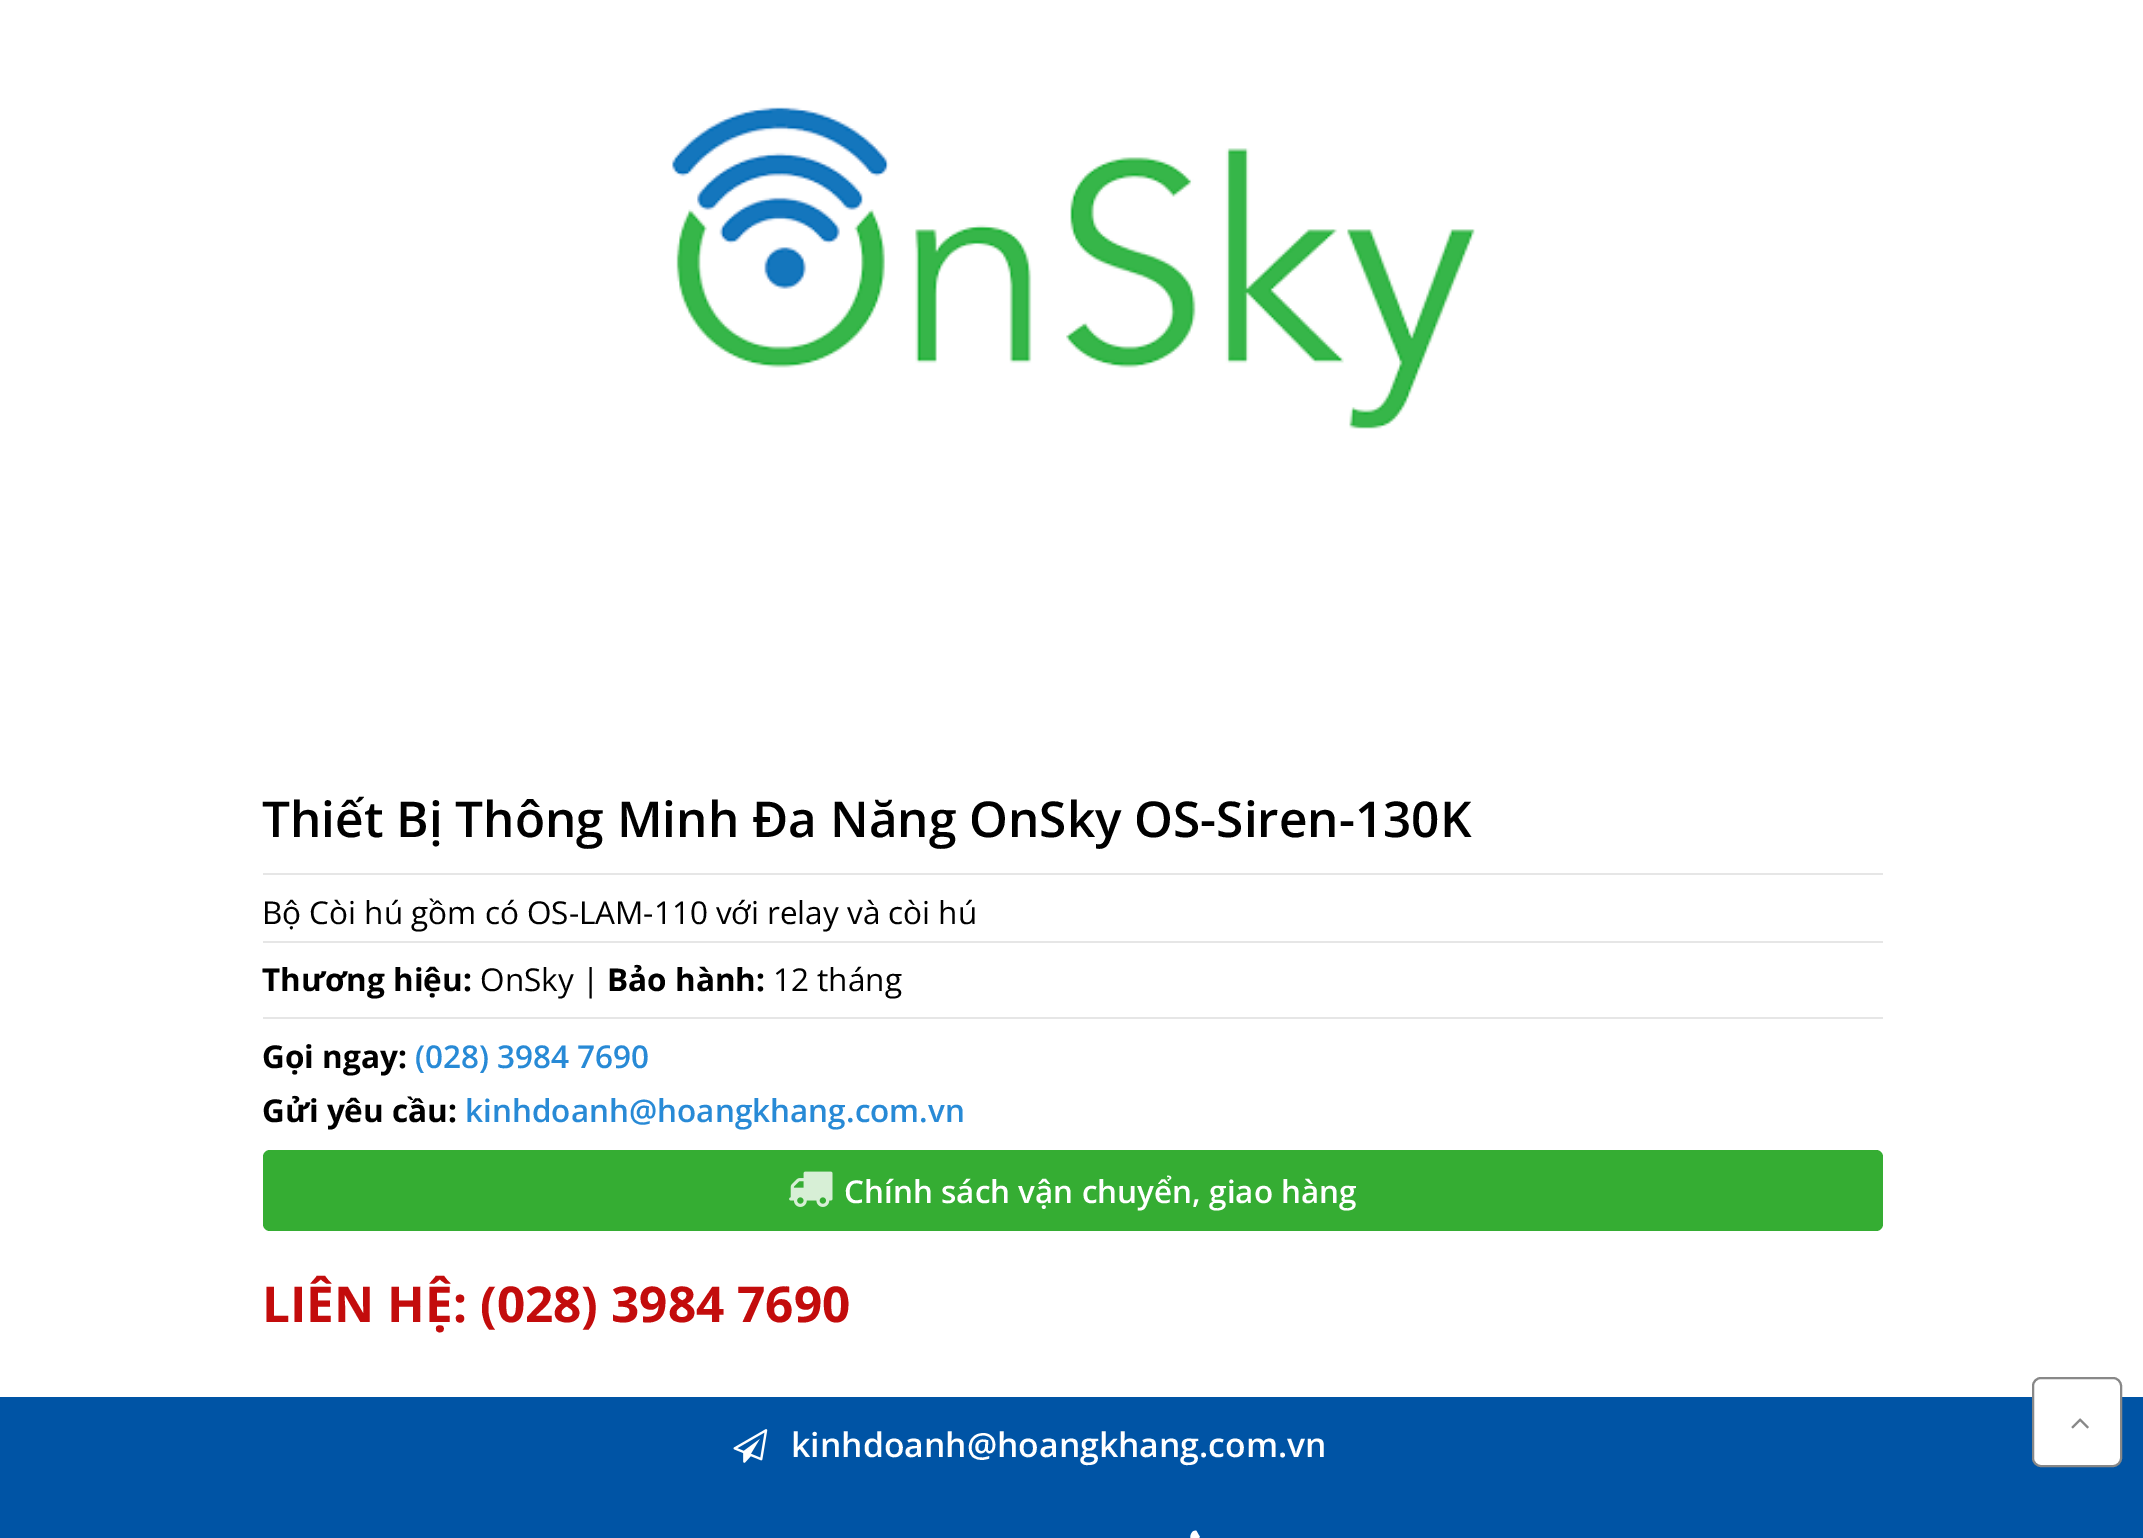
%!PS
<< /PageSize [2143 1538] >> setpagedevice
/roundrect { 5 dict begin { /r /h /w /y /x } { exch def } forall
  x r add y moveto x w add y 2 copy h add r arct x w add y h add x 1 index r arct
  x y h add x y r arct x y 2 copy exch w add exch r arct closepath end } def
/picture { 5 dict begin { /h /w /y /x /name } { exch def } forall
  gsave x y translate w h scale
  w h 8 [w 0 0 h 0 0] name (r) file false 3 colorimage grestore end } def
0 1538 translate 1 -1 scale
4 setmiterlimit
1 setgray
0 0 2143 1538 rectfill
(img1.rgb) 672 107 803 322 picture
/OpenSans-SemiBold [49.5 0 0 -49.5 0 0] selectfont
0 setgray
262 837 moveto (Thiết Bị Thông Minh Đa Năng OnSky OS-Siren-130K) show
0.902 setgray
263 873 1620 2 rectfill
/OpenSans-Regular [31.5 0 0 -31.5 0 0] selectfont
0 setgray
262 924 moveto (Bộ Còi hú gồm có OS-LAM-110 với relay và còi hú) show
0.902 setgray
263 941 1620 2 rectfill
/OpenSans-Bold [31.5 0 0 -31.5 0 0] selectfont
0 setgray
262 991 moveto (Thương hiệu:) show
/OpenSans-Regular [31.5 0 0 -31.5 0 0] selectfont
480 991 moveto (OnSky |) show
/OpenSans-Bold [31.5 0 0 -31.5 0 0] selectfont
607 991 moveto (Bảo hành:) show
/OpenSans-Regular [31.5 0 0 -31.5 0 0] selectfont
773 991 moveto (12 tháng) show
0.902 setgray
263 1017 1620 2 rectfill
/OpenSans-Bold [31.5 0 0 -31.5 0 0] selectfont
0 setgray
262 1068 moveto (Gọi ngay:) show
/OpenSans-SemiBold [31.5 0 0 -31.5 0 0] selectfont
0.157 0.541 0.839 setrgbcolor
415 1068 moveto (\(028\) 3984 7690) show
/OpenSans-Bold [31.5 0 0 -31.5 0 0] selectfont
0 setgray
262 1122 moveto (Gửi yêu cầu:) show
/OpenSans-SemiBold [31.5 0 0 -31.5 0 0] selectfont
0.157 0.541 0.839 setrgbcolor
465 1122 moveto (kinhdoanh@hoangkhang.com.vn) show
0.208 0.678 0.2 setrgbcolor
263 1150 1620 81 7 roundrect fill
(img2.rgb) 789 1171 44 36 picture
1 setgray
844 1203 moveto (Chính sách vận chuyển, giao hàng) show
/OpenSans-Bold [49.5 0 0 -49.5 0 0] selectfont
0.765 0.047 0.047 setrgbcolor
262 1322 moveto (LIÊN HỆ: \(028\) 3984 7690) show
0 0.329 0.647 setrgbcolor
0 1397 2143 141 rectfill
(img3.rgb) 733 1429 35 34 picture
/OpenSans-SemiBold [33.75 0 0 -33.75 0 0] selectfont
1 setgray
791 1457 moveto (kinhdoanh@hoangkhang.com.vn) show
(img4.rgb) 1190 1530 10 8 picture
2033 1378 88 88 8 roundrect gsave fill grestore
0.533 setgray
2 setlinewidth
stroke
(img5.rgb) 2071 1418 18 11 picture
showpage
